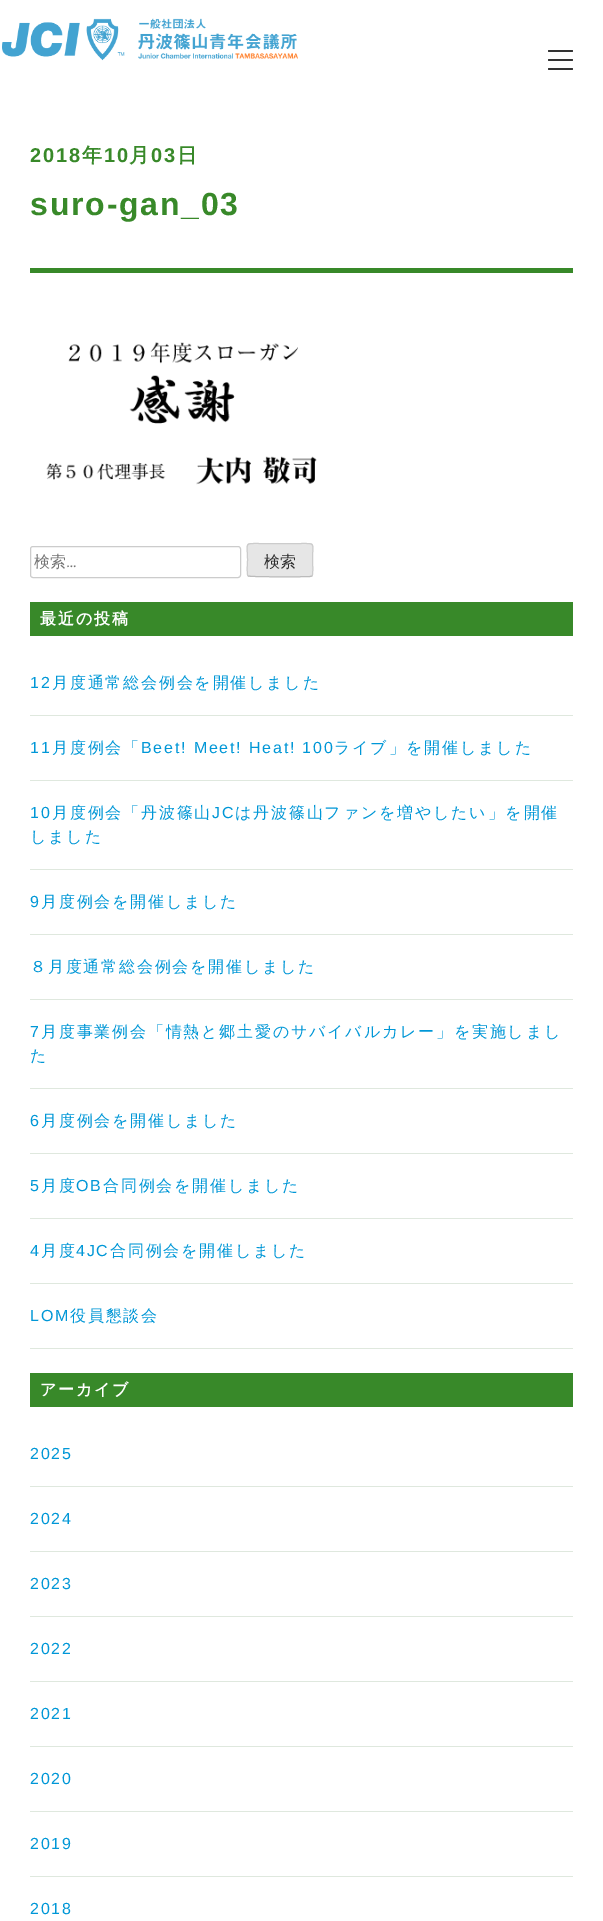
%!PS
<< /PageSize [603 1921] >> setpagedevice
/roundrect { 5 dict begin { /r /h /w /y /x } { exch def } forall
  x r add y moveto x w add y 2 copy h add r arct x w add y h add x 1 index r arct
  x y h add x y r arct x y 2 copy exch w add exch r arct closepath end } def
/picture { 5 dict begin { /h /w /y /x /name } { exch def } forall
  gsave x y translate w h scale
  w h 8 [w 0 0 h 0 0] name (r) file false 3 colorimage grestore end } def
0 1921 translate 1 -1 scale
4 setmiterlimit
1 setgray
0 0 603 1921 rectfill
(img1.rgb) 2 18 296 43 picture
0.2 setgray
548 50 25 2 1 roundrect fill
548 59 25 2 1 roundrect fill
548 68 25 2 1 roundrect fill
0.22 0.537 0.161 setrgbcolor
30 268 543 5 rectfill
/LiberationSans-Bold [20 0 0 -20 0 0] selectfont
30 162 moveto 1.8 0 (2018) ashow
/WenQuanYiZenHei-Bold [20 0 0 -20 0 0] selectfont
82 162 moveto 1.8 0 (年) ashow
/LiberationSans-Bold [20 0 0 -20 0 0] selectfont
104 162 moveto 1.8 0 (10) ashow
/WenQuanYiZenHei-Bold [20 0 0 -20 0 0] selectfont
129 162 moveto 1.8 0 (月) ashow
/LiberationSans-Bold [20 0 0 -20 0 0] selectfont
151 162 moveto 1.8 0 (03) ashow
/WenQuanYiZenHei-Bold [20 0 0 -20 0 0] selectfont
177 162 moveto 1.8 0 (日) ashow
/LiberationSans-Bold [32 0 0 -32 0 0] selectfont
30 215 moveto 1.8 0 (suro-gan_03) ashow
(img2.rgb) 46 342 271 143 picture
0.8 setgray
30.5 546.5 210 31 2.5 roundrect stroke
/WenQuanYiZenHei-Medium [16 0 0 -16 0 0] selectfont
0.459 setgray
34 567 moveto (検索) show
/Roboto-Regular [16 0 0 -16 0 0] selectfont
66 567 moveto (…) show
0.902 setgray
247 543 66 34 3 roundrect fill
0.733 setgray
newpath 312 576 moveto 310 576.5 lineto 305 577 249.5 577 248.5 576 curveto 248 576 lineto stroke
0.8 setgray
newpath 248 576 moveto 246.5 574 247.5 562.5 247.5 560 curveto 247.5 542 243.5 543.5 260 543.5 curveto 300 543.5 lineto 316.5 543.5 312.5 542 312.5 560 curveto 312.5 562.5 313.5 574 312 576 curveto stroke
/WenQuanYiZenHei-Medium [16 0 0 -16 0 0] selectfont
0.18 setgray
264 567 moveto (検索) show
0.22 0.537 0.161 setrgbcolor
30 602 543 34 rectfill
/WenQuanYiZenHei-Bold [16 0 0 -16 0 0] selectfont
1 setgray
40 624 moveto 1.8 0 (最近の投稿) ashow
0.875 0.91 0.871 setrgbcolor
30 715 543 1 rectfill
/LiberationSans-Regular [16 0 0 -16 0 0] selectfont
0 0.592 0.843 setrgbcolor
30 688 moveto 1.8 0 (12) ashow
/WenQuanYiZenHei-Medium [16 0 0 -16 0 0] selectfont
52 688 moveto 1.8 0 (月度通常総会例会を開催しました) ashow
0.875 0.91 0.871 setrgbcolor
30 780 543 1 rectfill
/LiberationSans-Regular [16 0 0 -16 0 0] selectfont
0 0.592 0.843 setrgbcolor
30 753 moveto 1.8 0 (11) ashow
/WenQuanYiZenHei-Medium [16 0 0 -16 0 0] selectfont
52 753 moveto 1.8 0 (月度例会「) ashow
/LiberationSans-Regular [16 0 0 -16 0 0] selectfont
141 753 moveto 1.8 0 (Beet! Meet! Heat! 100) ashow
/WenQuanYiZenHei-Medium [16 0 0 -16 0 0] selectfont
334 753 moveto 1.8 0 (ライブ」を開催しました) ashow
0.875 0.91 0.871 setrgbcolor
30 869 543 1 rectfill
/LiberationSans-Regular [16 0 0 -16 0 0] selectfont
0 0.592 0.843 setrgbcolor
30 818 moveto 1.8 0 (10) ashow
/WenQuanYiZenHei-Medium [16 0 0 -16 0 0] selectfont
52 818 moveto 1.8 0 (月度例会「丹波篠山) ashow
/LiberationSans-Regular [16 0 0 -16 0 0] selectfont
212 818 moveto 1.8 0 (JC) ashow
/WenQuanYiZenHei-Medium [16 0 0 -16 0 0] selectfont
235 818 moveto 1.8 0 (は丹波篠山ファンを増やしたい」を開催) ashow
30 842 moveto 1.8 0 (しました) ashow
0.875 0.91 0.871 setrgbcolor
30 934 543 1 rectfill
/LiberationSans-Regular [16 0 0 -16 0 0] selectfont
0 0.592 0.843 setrgbcolor
30 907 moveto 1.8 0 (9) ashow
/WenQuanYiZenHei-Medium [16 0 0 -16 0 0] selectfont
41 907 moveto 1.8 0 (月度例会を開催しました) ashow
0.875 0.91 0.871 setrgbcolor
30 999 543 1 rectfill
0 0.592 0.843 setrgbcolor
30 972 moveto 1.8 0 (８月度通常総会例会を開催しました) ashow
0.875 0.91 0.871 setrgbcolor
30 1088 543 1 rectfill
/LiberationSans-Regular [16 0 0 -16 0 0] selectfont
0 0.592 0.843 setrgbcolor
30 1037 moveto 1.8 0 (7) ashow
/WenQuanYiZenHei-Medium [16 0 0 -16 0 0] selectfont
41 1037 moveto 1.8 0 (月度事業例会「情熱と郷土愛のサバイバルカレー」を実施しまし) ashow
30 1061 moveto 1.8 0 (た) ashow
0.875 0.91 0.871 setrgbcolor
30 1153 543 1 rectfill
/LiberationSans-Regular [16 0 0 -16 0 0] selectfont
0 0.592 0.843 setrgbcolor
30 1126 moveto 1.8 0 (6) ashow
/WenQuanYiZenHei-Medium [16 0 0 -16 0 0] selectfont
41 1126 moveto 1.8 0 (月度例会を開催しました) ashow
0.875 0.91 0.871 setrgbcolor
30 1218 543 1 rectfill
/LiberationSans-Regular [16 0 0 -16 0 0] selectfont
0 0.592 0.843 setrgbcolor
30 1191 moveto 1.8 0 (5) ashow
/WenQuanYiZenHei-Medium [16 0 0 -16 0 0] selectfont
41 1191 moveto 1.8 0 (月度) ashow
/LiberationSans-Regular [16 0 0 -16 0 0] selectfont
76 1191 moveto 1.8 0 (OB) ashow
/WenQuanYiZenHei-Medium [16 0 0 -16 0 0] selectfont
103 1191 moveto 1.8 0 (合同例会を開催しました) ashow
0.875 0.91 0.871 setrgbcolor
30 1283 543 1 rectfill
/LiberationSans-Regular [16 0 0 -16 0 0] selectfont
0 0.592 0.843 setrgbcolor
30 1256 moveto 1.8 0 (4) ashow
/WenQuanYiZenHei-Medium [16 0 0 -16 0 0] selectfont
41 1256 moveto 1.8 0 (月度) ashow
/LiberationSans-Regular [16 0 0 -16 0 0] selectfont
76 1256 moveto 1.8 0 (4JC) ashow
/WenQuanYiZenHei-Medium [16 0 0 -16 0 0] selectfont
110 1256 moveto 1.8 0 (合同例会を開催しました) ashow
0.875 0.91 0.871 setrgbcolor
30 1348 543 1 rectfill
/LiberationSans-Regular [16 0 0 -16 0 0] selectfont
0 0.592 0.843 setrgbcolor
30 1321 moveto 1.8 0 (LOM) ashow
/WenQuanYiZenHei-Medium [16 0 0 -16 0 0] selectfont
70 1321 moveto 1.8 0 (役員懇談会) ashow
0.22 0.537 0.161 setrgbcolor
30 1373 543 34 rectfill
/WenQuanYiZenHei-Bold [16 0 0 -16 0 0] selectfont
1 setgray
40 1395 moveto 1.8 0 (アーカイブ) ashow
0.875 0.91 0.871 setrgbcolor
30 1486 543 1 rectfill
/LiberationSans-Regular [16 0 0 -16 0 0] selectfont
0 0.592 0.843 setrgbcolor
30 1459 moveto 1.8 0 (2025) ashow
0.875 0.91 0.871 setrgbcolor
30 1551 543 1 rectfill
0 0.592 0.843 setrgbcolor
30 1524 moveto 1.8 0 (2024) ashow
0.875 0.91 0.871 setrgbcolor
30 1616 543 1 rectfill
0 0.592 0.843 setrgbcolor
30 1589 moveto 1.8 0 (2023) ashow
0.875 0.91 0.871 setrgbcolor
30 1681 543 1 rectfill
0 0.592 0.843 setrgbcolor
30 1654 moveto 1.8 0 (2022) ashow
0.875 0.91 0.871 setrgbcolor
30 1746 543 1 rectfill
0 0.592 0.843 setrgbcolor
30 1719 moveto 1.8 0 (2021) ashow
0.875 0.91 0.871 setrgbcolor
30 1811 543 1 rectfill
0 0.592 0.843 setrgbcolor
30 1784 moveto 1.8 0 (2020) ashow
0.875 0.91 0.871 setrgbcolor
30 1876 543 1 rectfill
0 0.592 0.843 setrgbcolor
30 1849 moveto 1.8 0 (2019) ashow
30 1914 moveto 1.8 0 (2018) ashow
showpage
